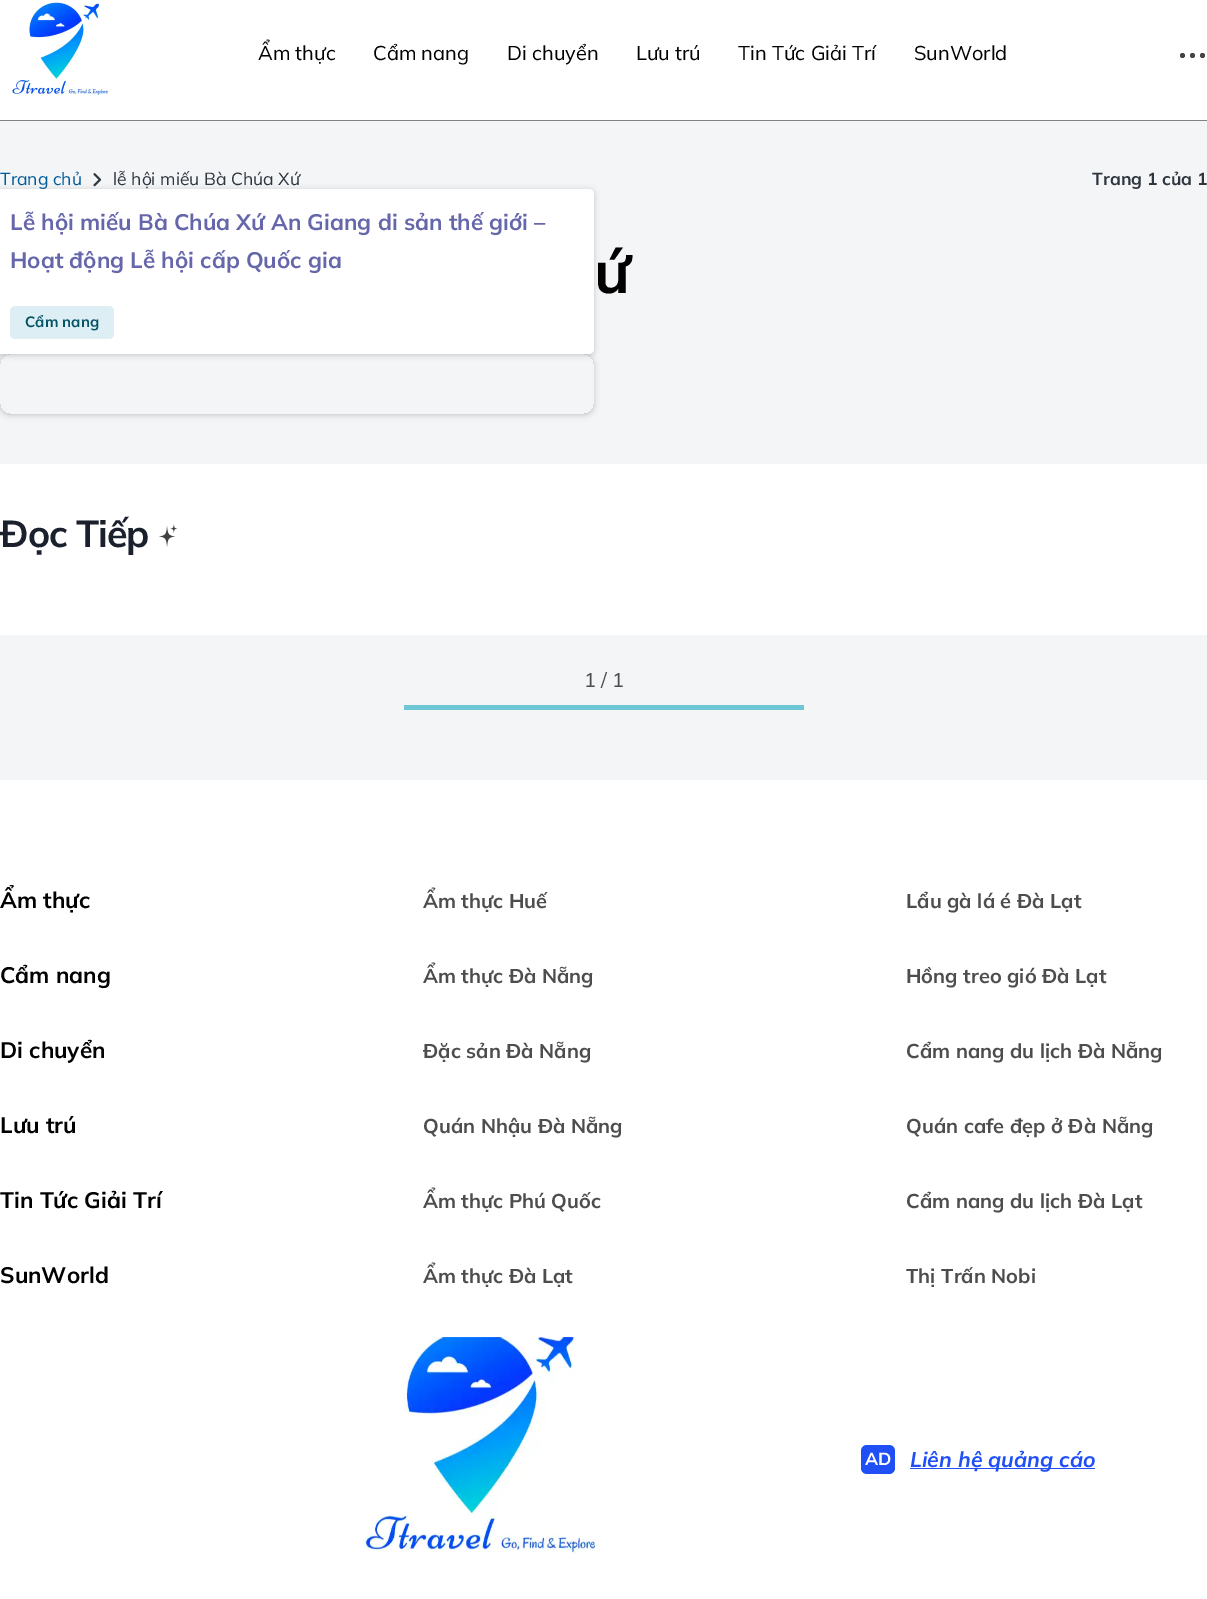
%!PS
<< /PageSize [1207 1599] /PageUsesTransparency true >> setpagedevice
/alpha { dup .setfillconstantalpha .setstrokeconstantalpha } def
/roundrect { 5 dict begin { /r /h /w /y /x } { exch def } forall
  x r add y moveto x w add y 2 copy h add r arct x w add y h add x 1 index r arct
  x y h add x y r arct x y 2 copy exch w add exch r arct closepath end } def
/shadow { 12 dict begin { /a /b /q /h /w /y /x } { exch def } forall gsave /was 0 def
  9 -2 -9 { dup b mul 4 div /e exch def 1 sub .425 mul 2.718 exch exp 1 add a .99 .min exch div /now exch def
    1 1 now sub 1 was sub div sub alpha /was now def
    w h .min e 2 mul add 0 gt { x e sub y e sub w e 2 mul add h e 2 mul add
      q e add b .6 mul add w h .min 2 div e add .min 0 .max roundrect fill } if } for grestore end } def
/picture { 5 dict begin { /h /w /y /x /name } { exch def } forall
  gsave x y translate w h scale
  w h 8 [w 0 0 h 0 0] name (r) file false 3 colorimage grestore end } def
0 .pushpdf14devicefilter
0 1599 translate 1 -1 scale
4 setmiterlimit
1 setgray
0 0 1207 1599 rectfill
0.51 setgray
0 120 1207 1 rectfill
(img1.rgb) 12 2 96 94 picture
/Mulish-Regular [20 0 0 -20 0 0] selectfont
0 setgray
258 60 moveto (Ẩm thực) show
373 60 moveto (Cẩm nang) show
507 60 moveto (Di chuyển) show
636 60 moveto (Lưu trú) show
738 60 moveto (Tin Tức Giải Trí) show
914 60 moveto (SunWorld) show
0.267 setgray
newpath 1182.5 55.5 2.5 0 360 arc closepath fill
newpath 1192.5 55.5 2.5 0 360 arc closepath fill
newpath 1202.5 55.5 2.5 0 360 arc closepath fill
0.953 0.961 0.969 setrgbcolor
0 121 1207 343 rectfill
/Mulish-Regular [17.5 0 0 -17.5 0 0] selectfont
0 0.357 0.6 setrgbcolor
0 185 moveto (Trang chủ) show
(img2.rgb) 93 173 9 14 picture
0.18 0.208 0.247 setrgbcolor
113 185 moveto (lễ hội miếu Bà Chúa Xứ) show
/Mulish-Bold [17.5 0 0 -17.5 0 0] selectfont
1092 185 moveto (Trang 1 của 1) show
/Mulish-Bold [60 0 0 -60 0 0] selectfont
0 setgray
594 293 moveto -2 0 (ứ) ashow
gsave
newpath 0 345 moveto 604 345 lineto 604 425 lineto 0 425 lineto closepath 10 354 moveto 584 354 lineto 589.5 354 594 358.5 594 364 curveto 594 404 lineto 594 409.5 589.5 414 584 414 curveto 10 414 lineto 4.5 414 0 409.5 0 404 curveto 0 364 lineto 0 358.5 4.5 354 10 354 curveto closepath eoclip newpath
0 355 594 60 10 3 0.2 shadow
grestore
-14 190 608 165 5 3 0.2 shadow
1 setgray
-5 189 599 165 5 roundrect fill
/Mulish-Bold [22.5 0 0 -22.5 0 0] selectfont
0.4 0.404 0.671 setrgbcolor
10 230 moveto (Lễ hội miếu Bà Chúa Xứ An Giang di sản thế giới –) show
10 268 moveto (Hoạt động Lễ hội cấp Quốc gia) show
0.867 0.937 0.957 setrgbcolor
10 306 104 33 5 roundrect fill
/Mulish-Bold [15 0 0 -15 0 0] selectfont
0.016 0.329 0.396 setrgbcolor
25 327 moveto (Cẩm nang) show
/Mulish-Bold [37.5 0 0 -37.5 0 0] selectfont
0.102 0.125 0.173 setrgbcolor
0 547 moveto -1 0 (Đọc Tiếp) ashow
(img3.rgb) 159 524 19 23 picture
0.953 0.961 0.969 setrgbcolor
0 635 1207 145 rectfill
/Mulish-Regular [20 0 0 -20 0 0] selectfont
0.302 0.302 0.306 setrgbcolor
584 687 moveto (1 / 1) show
0.431 0.776 0.835 setrgbcolor
404 705 400 5 rectfill
/Mulish-Bold [22.5 0 0 -22.5 0 0] selectfont
0 setgray
0 908 moveto (Ẩm thực) show
0 983 moveto (Cẩm nang) show
0 1058 moveto (Di chuyển) show
0 1133 moveto (Lưu trú) show
0 1208 moveto (Tin Tức Giải Trí) show
0 1283 moveto (SunWorld) show
/Mulish-Bold [20 0 0 -20 0 0] selectfont
0.302 0.302 0.306 setrgbcolor
423 908 moveto (Ẩm thực Huế) show
423 983 moveto (Ẩm thực Đà Nẵng) show
423 1058 moveto (Đặc sản Đà Nẵng) show
423 1133 moveto (Quán Nhậu Đà Nẵng) show
423 1208 moveto (Ẩm thực Phú Quốc) show
423 1283 moveto (Ẩm thực Đà Lạt) show
906 908 moveto (Lẩu gà lá é Đà Lạt) show
906 983 moveto (Hồng treo gió Đà Lạt) show
906 1058 moveto (Cẩm nang du lịch Đà Nẵng) show
906 1133 moveto (Quán cafe đẹp ở Đà Nẵng) show
906 1208 moveto (Cẩm nang du lịch Đà Lạt) show
906 1283 moveto (Thị Trấn Nobi) show
(img4.rgb) 364 1337 232 217 picture
0.122 0.31 0.961 setrgbcolor
861 1445 34 29 6 roundrect fill
/Mulish-Bold [17.5 0 0 -17.5 0 0] selectfont
1 setgray
865 1465 moveto (AD) show
0.122 0.31 0.961 setrgbcolor
910 1468 185 1 rectfill
/Mulish-BoldItalic [21.25 0 0 -21.25 0 0] selectfont
910 1467 moveto (Liên hệ quảng cáo) show
.poppdf14devicefilter showpage
